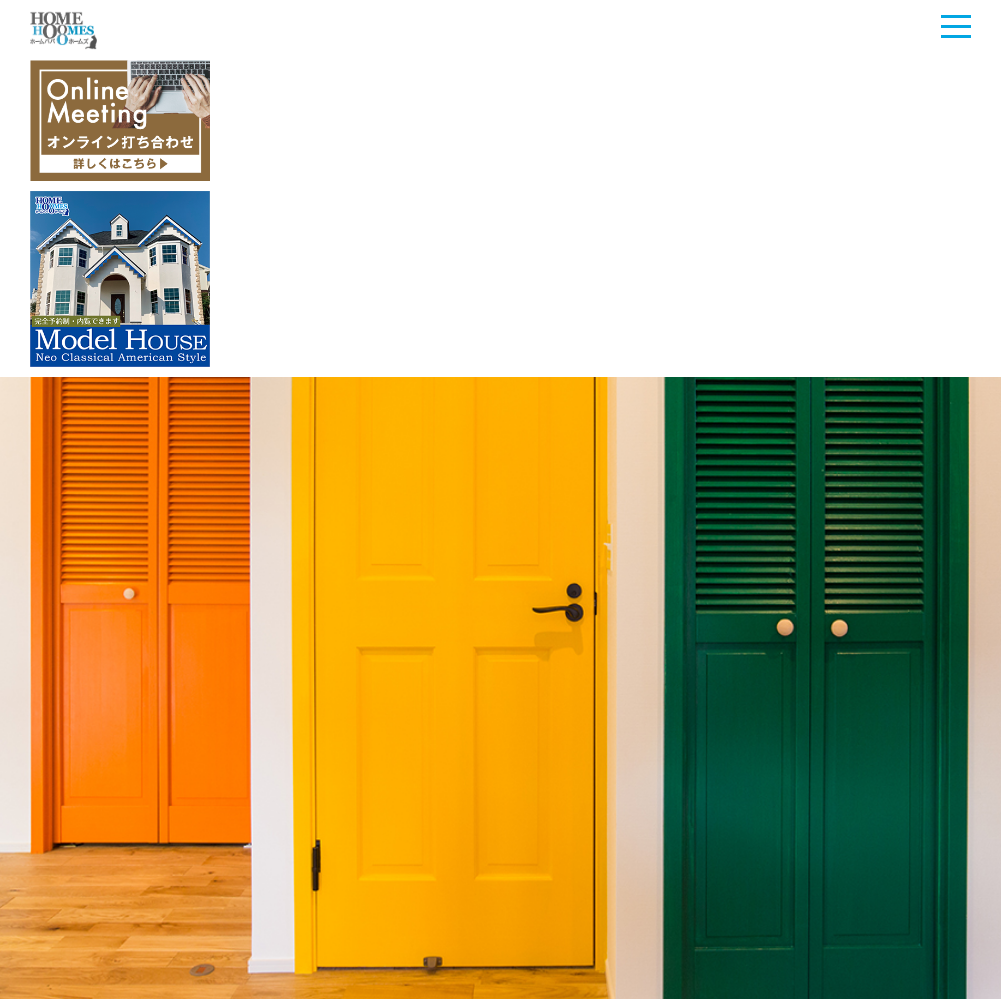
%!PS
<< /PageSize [1001 999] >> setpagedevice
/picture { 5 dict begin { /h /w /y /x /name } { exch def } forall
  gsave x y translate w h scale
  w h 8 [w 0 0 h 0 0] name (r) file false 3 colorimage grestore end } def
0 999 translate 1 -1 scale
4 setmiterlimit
1 setgray
0 0 1001 999 rectfill
(img1.rgb) 30 11 67 39 picture
(img2.rgb) 30 60 180 121 picture
(img3.rgb) 30 191 180 176 picture
0.008 0.651 0.89 setrgbcolor
941 15 30 3 rectfill
941 25 30 3 rectfill
941 35 30 3 rectfill
(img4.rgb) 0 377 1001 622 picture
showpage
